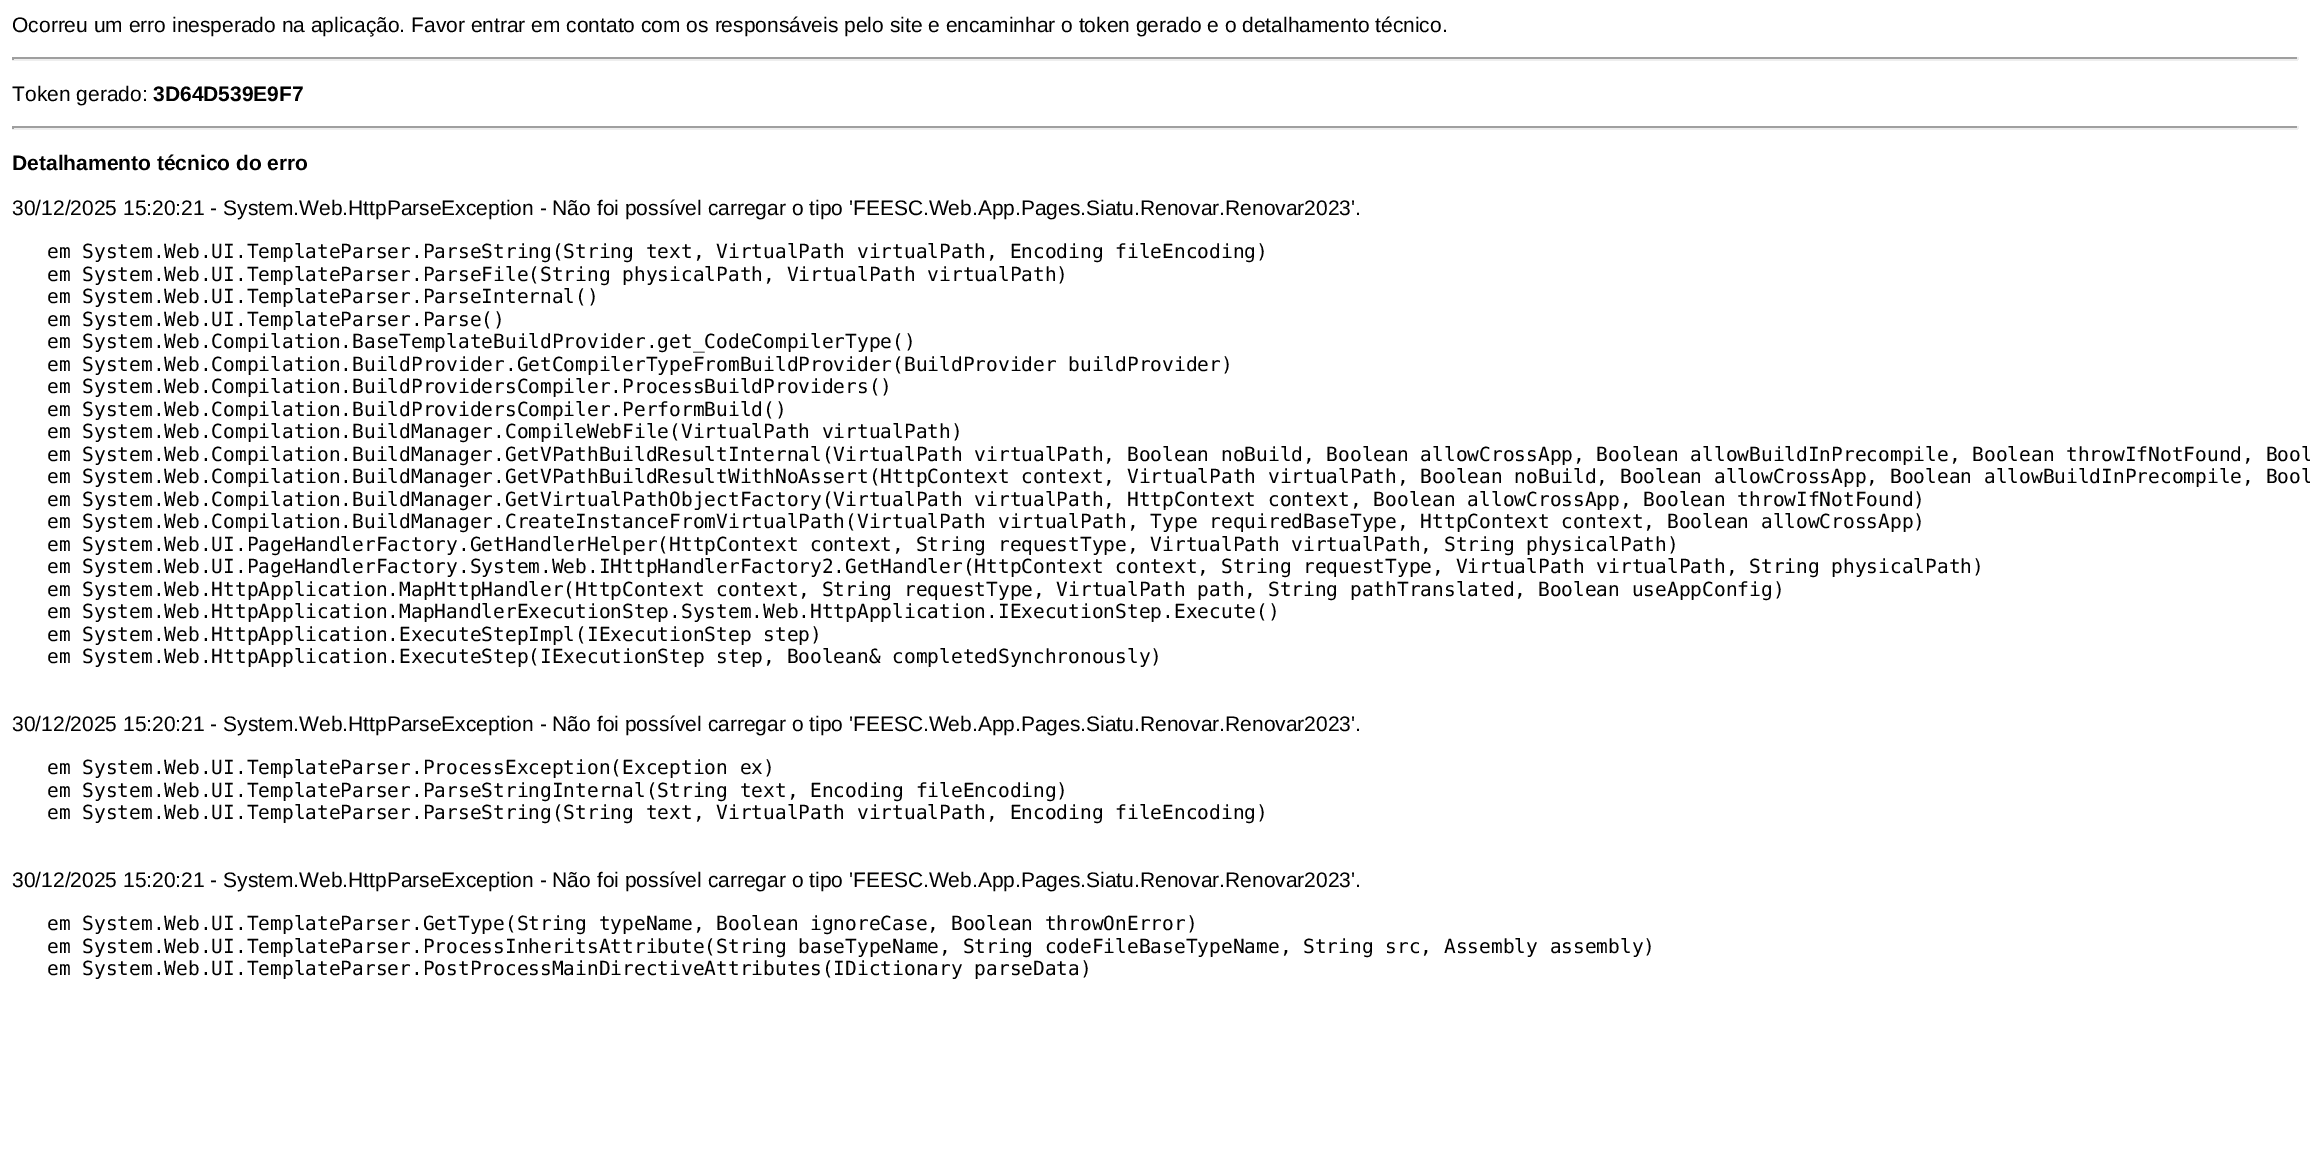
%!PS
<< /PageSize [2310 1155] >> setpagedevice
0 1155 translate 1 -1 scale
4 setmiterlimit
1 setgray
0 0 2310 1155 rectfill
/LiberationSans-Regular [21 0 0 -21 0 0] selectfont
0 setgray
12 32 moveto (Ocorreu um erro inesperado na aplicação. Favor entrar em contato com os responsáveis pelo site e encaminhar o token gerado e o detalhamento técnico.) show
0.624 setgray
12 57 2286 2 rectfill
0.933 setgray
2297 57 2 3 rectfill
12 59 2286 2 rectfill
0.624 setgray
12 57 2 3 rectfill
0 setgray
12 101 moveto (Token gerado:) show
/LiberationSans-Bold [21 0 0 -21 0 0] selectfont
153 101 moveto (3D64D539E9F7) show
0.624 setgray
12 126 2286 2 rectfill
0.933 setgray
2297 126 2 3 rectfill
12 128 2286 2 rectfill
0.624 setgray
12 126 2 3 rectfill
0 setgray
12 170 moveto (Detalhamento técnico do erro) show
/LiberationSans-Regular [21 0 0 -21 0 0] selectfont
12 215 moveto (30/12/2025 15:20:21 - System.Web.HttpParseException - Não foi possível carregar o tipo 'FEESC.Web.App.Pages.Siatu.Renovar.Renovar2023'.) show
/DejaVuSansMono-Regular [19.5 0 0 -19.5 0 0] selectfont
47 258 moveto (em System.Web.UI.TemplateParser.ParseString\(String text, VirtualPath virtualPath, Encoding fileEncoding\)) show
47 281 moveto (em System.Web.UI.TemplateParser.ParseFile\(String physicalPath, VirtualPath virtualPath\)) show
47 303 moveto (em System.Web.UI.TemplateParser.ParseInternal\(\)) show
47 326 moveto (em System.Web.UI.TemplateParser.Parse\(\)) show
47 348 moveto (em System.Web.Compilation.BaseTemplateBuildProvider.get_CodeCompilerType\(\)) show
47 371 moveto (em System.Web.Compilation.BuildProvider.GetCompilerTypeFromBuildProvider\(BuildProvider buildProvider\)) show
47 393 moveto (em System.Web.Compilation.BuildProvidersCompiler.ProcessBuildProviders\(\)) show
47 416 moveto (em System.Web.Compilation.BuildProvidersCompiler.PerformBuild\(\)) show
47 438 moveto (em System.Web.Compilation.BuildManager.CompileWebFile\(VirtualPath virtualPath\)) show
47 461 moveto (em System.Web.Compilation.BuildManager.GetVPathBuildResultInternal\(VirtualPath virtualPath, Boolean noBuild, Boolean allowCrossApp, Boolean allowBuildInPrecompile, Boolean throwIfNotFound, Bool) show
47 483 moveto (em System.Web.Compilation.BuildManager.GetVPathBuildResultWithNoAssert\(HttpContext context, VirtualPath virtualPath, Boolean noBuild, Boolean allowCrossApp, Boolean allowBuildInPrecompile, Bool) show
47 506 moveto (em System.Web.Compilation.BuildManager.GetVirtualPathObjectFactory\(VirtualPath virtualPath, HttpContext context, Boolean allowCrossApp, Boolean throwIfNotFound\)) show
47 528 moveto (em System.Web.Compilation.BuildManager.CreateInstanceFromVirtualPath\(VirtualPath virtualPath, Type requiredBaseType, HttpContext context, Boolean allowCrossApp\)) show
47 551 moveto (em System.Web.UI.PageHandlerFactory.GetHandlerHelper\(HttpContext context, String requestType, VirtualPath virtualPath, String physicalPath\)) show
47 573 moveto (em System.Web.UI.PageHandlerFactory.System.Web.IHttpHandlerFactory2.GetHandler\(HttpContext context, String requestType, VirtualPath virtualPath, String physicalPath\)) show
47 596 moveto (em System.Web.HttpApplication.MapHttpHandler\(HttpContext context, String requestType, VirtualPath path, String pathTranslated, Boolean useAppConfig\)) show
47 618 moveto (em System.Web.HttpApplication.MapHandlerExecutionStep.System.Web.HttpApplication.IExecutionStep.Execute\(\)) show
47 641 moveto (em System.Web.HttpApplication.ExecuteStepImpl\(IExecutionStep step\)) show
47 663 moveto (em System.Web.HttpApplication.ExecuteStep\(IExecutionStep step, Boolean& completedSynchronously\)) show
/LiberationSans-Regular [21 0 0 -21 0 0] selectfont
12 731 moveto (30/12/2025 15:20:21 - System.Web.HttpParseException - Não foi possível carregar o tipo 'FEESC.Web.App.Pages.Siatu.Renovar.Renovar2023'.) show
/DejaVuSansMono-Regular [19.5 0 0 -19.5 0 0] selectfont
47 774 moveto (em System.Web.UI.TemplateParser.ProcessException\(Exception ex\)) show
47 797 moveto (em System.Web.UI.TemplateParser.ParseStringInternal\(String text, Encoding fileEncoding\)) show
47 819 moveto (em System.Web.UI.TemplateParser.ParseString\(String text, VirtualPath virtualPath, Encoding fileEncoding\)) show
/LiberationSans-Regular [21 0 0 -21 0 0] selectfont
12 887 moveto (30/12/2025 15:20:21 - System.Web.HttpParseException - Não foi possível carregar o tipo 'FEESC.Web.App.Pages.Siatu.Renovar.Renovar2023'.) show
/DejaVuSansMono-Regular [19.5 0 0 -19.5 0 0] selectfont
47 930 moveto (em System.Web.UI.TemplateParser.GetType\(String typeName, Boolean ignoreCase, Boolean throwOnError\)) show
47 953 moveto (em System.Web.UI.TemplateParser.ProcessInheritsAttribute\(String baseTypeName, String codeFileBaseTypeName, String src, Assembly assembly\)) show
47 975 moveto (em System.Web.UI.TemplateParser.PostProcessMainDirectiveAttributes\(IDictionary parseData\)) show
showpage
